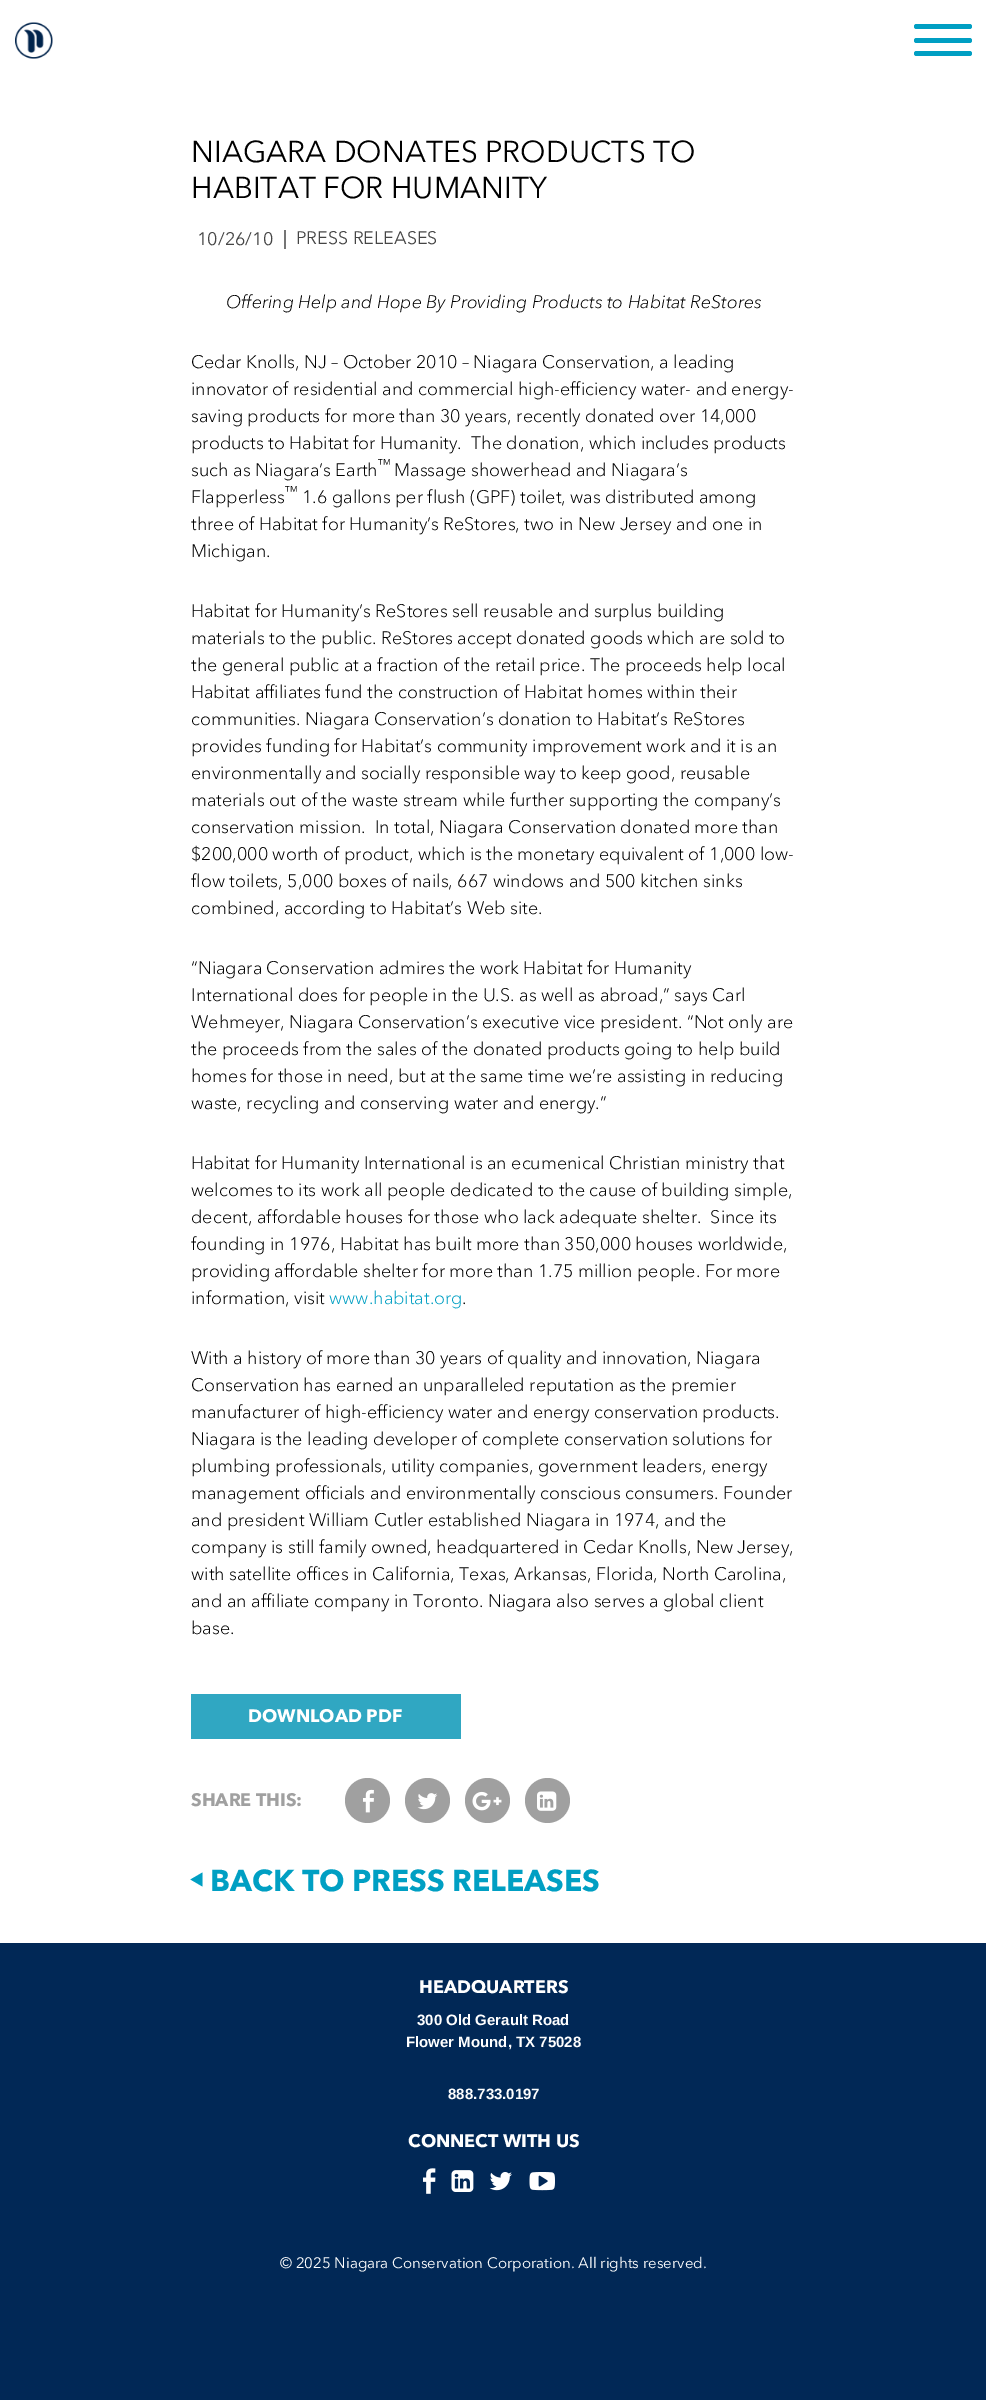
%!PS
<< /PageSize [986 2400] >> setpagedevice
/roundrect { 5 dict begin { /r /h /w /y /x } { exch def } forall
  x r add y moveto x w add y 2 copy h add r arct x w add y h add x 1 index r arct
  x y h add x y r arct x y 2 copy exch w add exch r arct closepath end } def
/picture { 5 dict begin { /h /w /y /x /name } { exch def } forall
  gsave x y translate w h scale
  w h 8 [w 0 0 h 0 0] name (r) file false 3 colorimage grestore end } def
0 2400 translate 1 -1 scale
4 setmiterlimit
0.004 0.157 0.337 setrgbcolor
0 0 986 2400 rectfill
1 setgray
0 0 986 1943 rectfill
(img1.rgb) 15 22 38 37 picture
0 0.624 0.765 setrgbcolor
914 24 58 5 2.5 roundrect fill
914 38 58 5 2.5 roundrect fill
914 51 58 5 2.5 roundrect fill
/Avenir-Regular [30 0 0 -30 0 0] selectfont
0 setgray
191 162 moveto (NIAGARA DONATES PRODUCTS TO) show
191 198 moveto (HABITAT FOR HUMANITY) show
/Avenir-Regular [18 0 0 -18 0 0] selectfont
0.271 setgray
197 245 moveto (10/26/10) show
0.459 setgray
284 230 2 19 rectfill
0.271 setgray
296 244 moveto (PRESS RELEASES) show
/Avenir-Italic [18 0 0 -18 0 0] selectfont
0 setgray
226 308 moveto (Offering Help and Hope By Providing Products to Habitat ReStores) show
/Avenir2-Regular [18 0 0 -18 0 0] selectfont
191 368 moveto (Cedar Knolls, NJ – October 2010 – Niagara Conservation, a leading) show
191 395 moveto (innovator of residential and commercial high-efficiency water- and energy-) show
191 422 moveto (saving products for more than 30 years, recently donated over 14,000) show
191 449 moveto (products to Habitat for Humanity.  The donation, which includes products) show
191 476 moveto (such as Niagara’s Earth) show
/Avenir2-Regular [14 0 0 -14 0 0] selectfont
377 469 moveto (™) show
/Avenir2-Regular [18 0 0 -18 0 0] selectfont
394 476 moveto (Massage showerhead and Niagara’s) show
191 503 moveto (Flapperless) show
/Avenir2-Regular [14 0 0 -14 0 0] selectfont
284 496 moveto (™) show
/Avenir2-Regular [18 0 0 -18 0 0] selectfont
302 503 moveto (1.6 gallons per flush \(GPF\) toilet, was distributed among) show
191 530 moveto (three of Habitat for Humanity’s ReStores, two in New Jersey and one in) show
191 557 moveto (Michigan.) show
191 617 moveto (Habitat for Humanity’s ReStores sell reusable and surplus building) show
191 644 moveto (materials to the public. ReStores accept donated goods which are sold to) show
191 671 moveto (the general public at a fraction of the retail price. The proceeds help local) show
191 698 moveto (Habitat affiliates fund the construction of Habitat homes within their) show
191 725 moveto (communities. Niagara Conservation’s donation to Habitat’s ReStores) show
191 752 moveto (provides funding for Habitat’s community improvement work and it is an) show
191 779 moveto (environmentally and socially responsible way to keep good, reusable) show
191 806 moveto (materials out of the waste stream while further supporting the company’s) show
191 833 moveto (conservation mission.  In total, Niagara Conservation donated more than) show
191 860 moveto ($200,000 worth of product, which is the monetary equivalent of 1,000 low-) show
191 887 moveto (flow toilets, 5,000 boxes of nails, 667 windows and 500 kitchen sinks) show
191 914 moveto (combined, according to Habitat’s Web site.) show
191 974 moveto (“Niagara Conservation admires the work Habitat for Humanity) show
191 1001 moveto (International does for people in the U.S. as well as abroad,” says Carl) show
191 1028 moveto (Wehmeyer, Niagara Conservation’s executive vice president. “Not only are) show
191 1055 moveto (the proceeds from the sales of the donated products going to help build) show
191 1082 moveto (homes for those in need, but at the same time we’re assisting in reducing) show
191 1109 moveto (waste, recycling and conserving water and energy.”) show
191 1169 moveto (Habitat for Humanity International is an ecumenical Christian ministry that) show
191 1196 moveto (welcomes to its work all people dedicated to the cause of building simple,) show
191 1223 moveto (decent, affordable houses for those who lack adequate shelter.  Since its) show
191 1250 moveto (founding in 1976, Habitat has built more than 350,000 houses worldwide,) show
191 1277 moveto (providing affordable shelter for more than 1.75 million people. For more) show
191 1304 moveto (information, visit) show
0 0.624 0.765 setrgbcolor
329 1304 moveto (www.habitat.org) show
0 setgray
462 1304 moveto (.) show
191 1364 moveto (With a history of more than 30 years of quality and innovation, Niagara) show
191 1391 moveto (Conservation has earned an unparalleled reputation as the premier) show
191 1418 moveto (manufacturer of high-efficiency water and energy conservation products.) show
191 1445 moveto (Niagara is the leading developer of complete conservation solutions for) show
191 1472 moveto (plumbing professionals, utility companies, government leaders, energy) show
191 1499 moveto (management officials and environmentally conscious consumers. Founder) show
191 1526 moveto (and president William Cutler established Niagara in 1974, and the) show
191 1553 moveto (company is still family owned, headquartered in Cedar Knolls, New Jersey,) show
191 1580 moveto (with satellite offices in California, Texas, Arkansas, Florida, North Carolina,) show
191 1607 moveto (and an affiliate company in Toronto. Niagara also serves a global client) show
191 1634 moveto (base.) show
0.188 0.655 0.761 setrgbcolor
191 1694 270 45 rectfill
/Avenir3-Regular [18 0 0 -18 0 0] selectfont
1 setgray
248 1722 moveto (DOWNLOAD PDF) show
0.627 setgray
191 1806 moveto (SHARE THIS:) show
newpath 367.5 1800.5 22.5 0 360 arc closepath fill
(img2.rgb) 363 1789 11 24 picture
newpath 427.5 1800.5 22.5 0 360 arc closepath fill
(img3.rgb) 417 1793 21 17 picture
newpath 487.5 1800.5 22.5 0 360 arc closepath fill
(img4.rgb) 472 1791 30 20 picture
newpath 547.5 1800.5 22.5 0 360 arc closepath fill
(img5.rgb) 537 1791 20 20 picture
0 0.624 0.765 setrgbcolor
newpath 202.5 1872.5 moveto 190.5 1879.5 lineto 202.5 1886.5 lineto closepath fill
/Avenir3-Regular [30 0 0 -30 0 0] selectfont
210 1891 moveto (BACK TO PRESS RELEASES) show
/Avenir3-Regular [18 0 0 -18 0 0] selectfont
1 setgray
419 1993 moveto (HEADQUARTERS) show
/LiberationSans-Bold [15 0 0 -15 0 0] selectfont
417 2025 moveto (300 Old Gerault Road) show
406 2047 moveto (Flower Mound, TX 75028) show
448 2099 moveto (888.733.0197) show
/Avenir3-Regular [18 0 0 -18 0 0] selectfont
408 2147 moveto (CONNECT WITH US) show
(img6.rgb) 423 2168 13 26 picture
(img7.rgb) 451 2170 23 22 picture
(img8.rgb) 489 2172 23 19 picture
(img9.rgb) 529 2172 26 19 picture
/Avenir-Regular [15 0 0 -15 0 0] selectfont
280 2268 moveto (© 2025 Niagara Conservation Corporation. All rights reserved.) show
showpage
